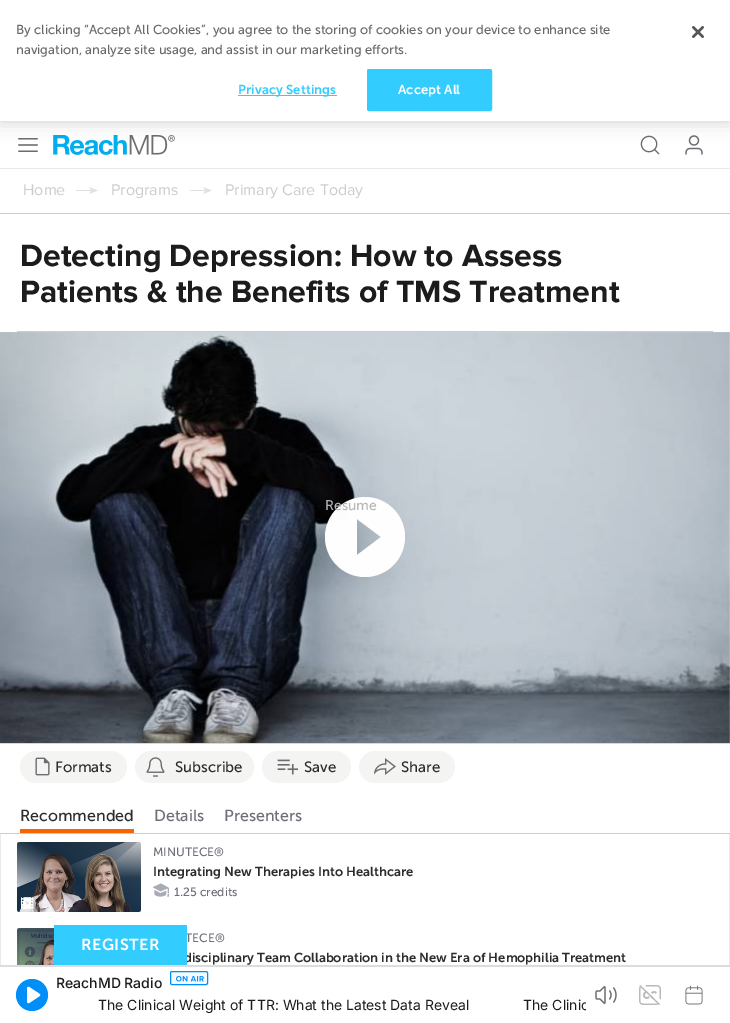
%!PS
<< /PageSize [730 1023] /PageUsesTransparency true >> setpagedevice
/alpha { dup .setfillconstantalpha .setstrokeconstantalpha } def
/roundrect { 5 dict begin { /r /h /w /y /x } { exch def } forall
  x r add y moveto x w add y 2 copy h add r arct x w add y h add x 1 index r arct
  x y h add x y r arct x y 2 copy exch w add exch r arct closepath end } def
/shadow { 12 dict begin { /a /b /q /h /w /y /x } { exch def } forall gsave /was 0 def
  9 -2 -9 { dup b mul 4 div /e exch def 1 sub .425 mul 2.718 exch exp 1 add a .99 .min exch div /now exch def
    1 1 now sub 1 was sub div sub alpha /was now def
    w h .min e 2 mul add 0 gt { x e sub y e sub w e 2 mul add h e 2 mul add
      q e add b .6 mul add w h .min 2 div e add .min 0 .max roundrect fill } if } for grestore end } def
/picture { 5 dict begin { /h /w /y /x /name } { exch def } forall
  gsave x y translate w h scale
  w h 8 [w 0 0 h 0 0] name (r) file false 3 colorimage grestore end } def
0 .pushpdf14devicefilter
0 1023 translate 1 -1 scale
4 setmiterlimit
1 setgray
0 0 730 1023 rectfill
(img2.rgb) 18 138 20 14 picture
(img3.rgb) 53 135 122 20 picture
(img4.rgb) 640 135 20 20 picture
(img5.rgb) 685 135 18 20 picture
0 setgray
0 0 730 121 0 9 0.2 shadow
1 setgray
0 0 730 121 rectfill
/MuseoSans-Regular [13 0 0 -13 0 0] selectfont
0.412 setgray
16 34 moveto (By clicking “Accept All Cookies”, you agree to the storing of cookies on your device to enhance site) show
16 54 moveto (navigation, analyze site usage, and assist in our marketing efforts.) show
0.2 0.8 1 setrgbcolor
238 95 99 1 rectfill
/MuseoSans-SemiBold [13 0 0 -13 0 0] selectfont
238 94 moveto 0.1 0 (Privacy Settings) ashow
367.5 69.5 124 41 1.5 roundrect gsave fill grestore
stroke
1 setgray
398 94 moveto 0.1 0 (Accept All) ashow
(img1.rgb) 692 26 12 12 picture
0.918 setgray
0 168 730 1 rectfill
0.8 setgray
0 213 730 1 rectfill
/ProximaNova-Regular [16 0 0 -16 0 0] selectfont
23 195 moveto (Home) show
(img6.rgb) 76 187 22 7 picture
111 195 moveto (Programs) show
(img6.rgb) 190 187 22 7 picture
225 195 moveto (Primary Care Today) show
/ProximaNova-Bold [32 0 0 -32 0 0] selectfont
0.11 setgray
20 266 moveto (Detecting Depression: How to Assess) show
20 302 moveto (Patients & the Benefits of TMS Treatment) show
0.8 setgray
17 331 696 1 rectfill
0.843 setgray
0 743 730 1 rectfill
(img7.rgb) 0 332 730 411 picture
0.99 alpha
1 setgray
newpath 365 497 moveto 343 497 325 515 325 537 curveto 325 559 343 577 365 577 curveto 387 577 405 559 405 537 curveto 405 515 387 497 365 497 curveto closepath 357 555 moveto 357 519 lineto 381 537 lineto closepath eofill
/MuseoSans-Regular [14 0 0 -14 0 0] selectfont
1 alpha
0.718 setgray
325 510 moveto (Resume) show
0.957 0.957 0.953 setrgbcolor
20 751 107 32 16 roundrect fill
(img8.rgb) 35 757 15 19 picture
/MuseoSans-Regular [15 0 0 -15 0 0] selectfont
0.173 setgray
55 772 moveto (Formats) show
0.957 0.957 0.953 setrgbcolor
135 751 119 32 16 roundrect fill
(img9.rgb) 146 757 19 20 picture
0.173 setgray
175 772 moveto (Subscribe) show
0.957 0.957 0.953 setrgbcolor
262 751 89 32 16 roundrect fill
(img10.rgb) 277 759 21 16 picture
0.173 setgray
304 772 moveto (Save) show
0.957 0.957 0.953 setrgbcolor
359 751 96 32 16 roundrect fill
(img11.rgb) 374 758 22 17 picture
0.173 setgray
401 772 moveto (Share) show
0.8 setgray
0 833 730 1 rectfill
/MuseoSans-Regular [16 0 0 -16 0 0] selectfont
0.173 setgray
20 821 moveto (Recommended) show
0.969 0.396 0 setrgbcolor
20 829 114 4 rectfill
0.424 0.431 0.475 setrgbcolor
154 821 moveto (Details) show
224 821 moveto (Presenters) show
0.918 setgray
729 834 1 131 rectfill
0 834 1 131 rectfill
(img12.rgb) 17 842 124 70 picture
(img13.rgb) 21 897 13 12 picture
/MuseoSans-Regular [12 0 0 -12 0 0] selectfont
0.424 0.431 0.475 setrgbcolor
153 856 moveto (MINUTECE®) show
/MuseoSans-SemiBold [13 0 0 -13 0 0] selectfont
0.173 setgray
153 876 moveto (Integrating New Therapies Into Healthcare) show
(img14.rgb) 153 883 16 14 picture
/MuseoSans-Regular [12 0 0 -12 0 0] selectfont
0.424 0.431 0.475 setrgbcolor
174 896 moveto (1.25 credits) show
(img15.rgb) 17 928 37 37 picture
185 942 moveto (TECE®) show
/MuseoSans-SemiBold [13 0 0 -13 0 0] selectfont
0.173 setgray
184 962 moveto (disciplinary Team Collaboration in the New Era of Hemophilia Treatment) show
0.2 0.8 1 setrgbcolor
54 925 133 40 rectfill
/MuseoSans-SemiBold [16 0 0 -16 0 0] selectfont
1 setgray
81 950 moveto 0.5 0 (REGISTER) ashow
0.863 setgray
0 965 730 2 rectfill
0 0.561 0.973 setrgbcolor
newpath 32 995 16 0 360 arc closepath fill
(img16.rgb) 27 986 14 18 picture
/Inter-Medium [14 0 0 -14 0 0] selectfont
0.11 setgray
56 988 moveto (ReachMD Radio) show
0.957 0.98 1 setrgbcolor
170.5 971.5 37 13 1.5 roundrect gsave fill grestore
0 0.561 0.973 setrgbcolor
stroke
(img17.rgb) 176 976 28 6 picture
/Inter-Regular [14 0 0 -14 0 0] selectfont
0.11 setgray
98 1010 moveto (The Clinical Weight of TTR: What the Latest Data Reveal) show
gsave
56 995 530 22 rectclip
523 1010 moveto (The Clinic) show
grestore
(img18.rgb) 595 986 22 18 picture
(img19.rgb) 639 985 22 20 picture
(img20.rgb) 685 985 18 20 picture
.poppdf14devicefilter showpage
